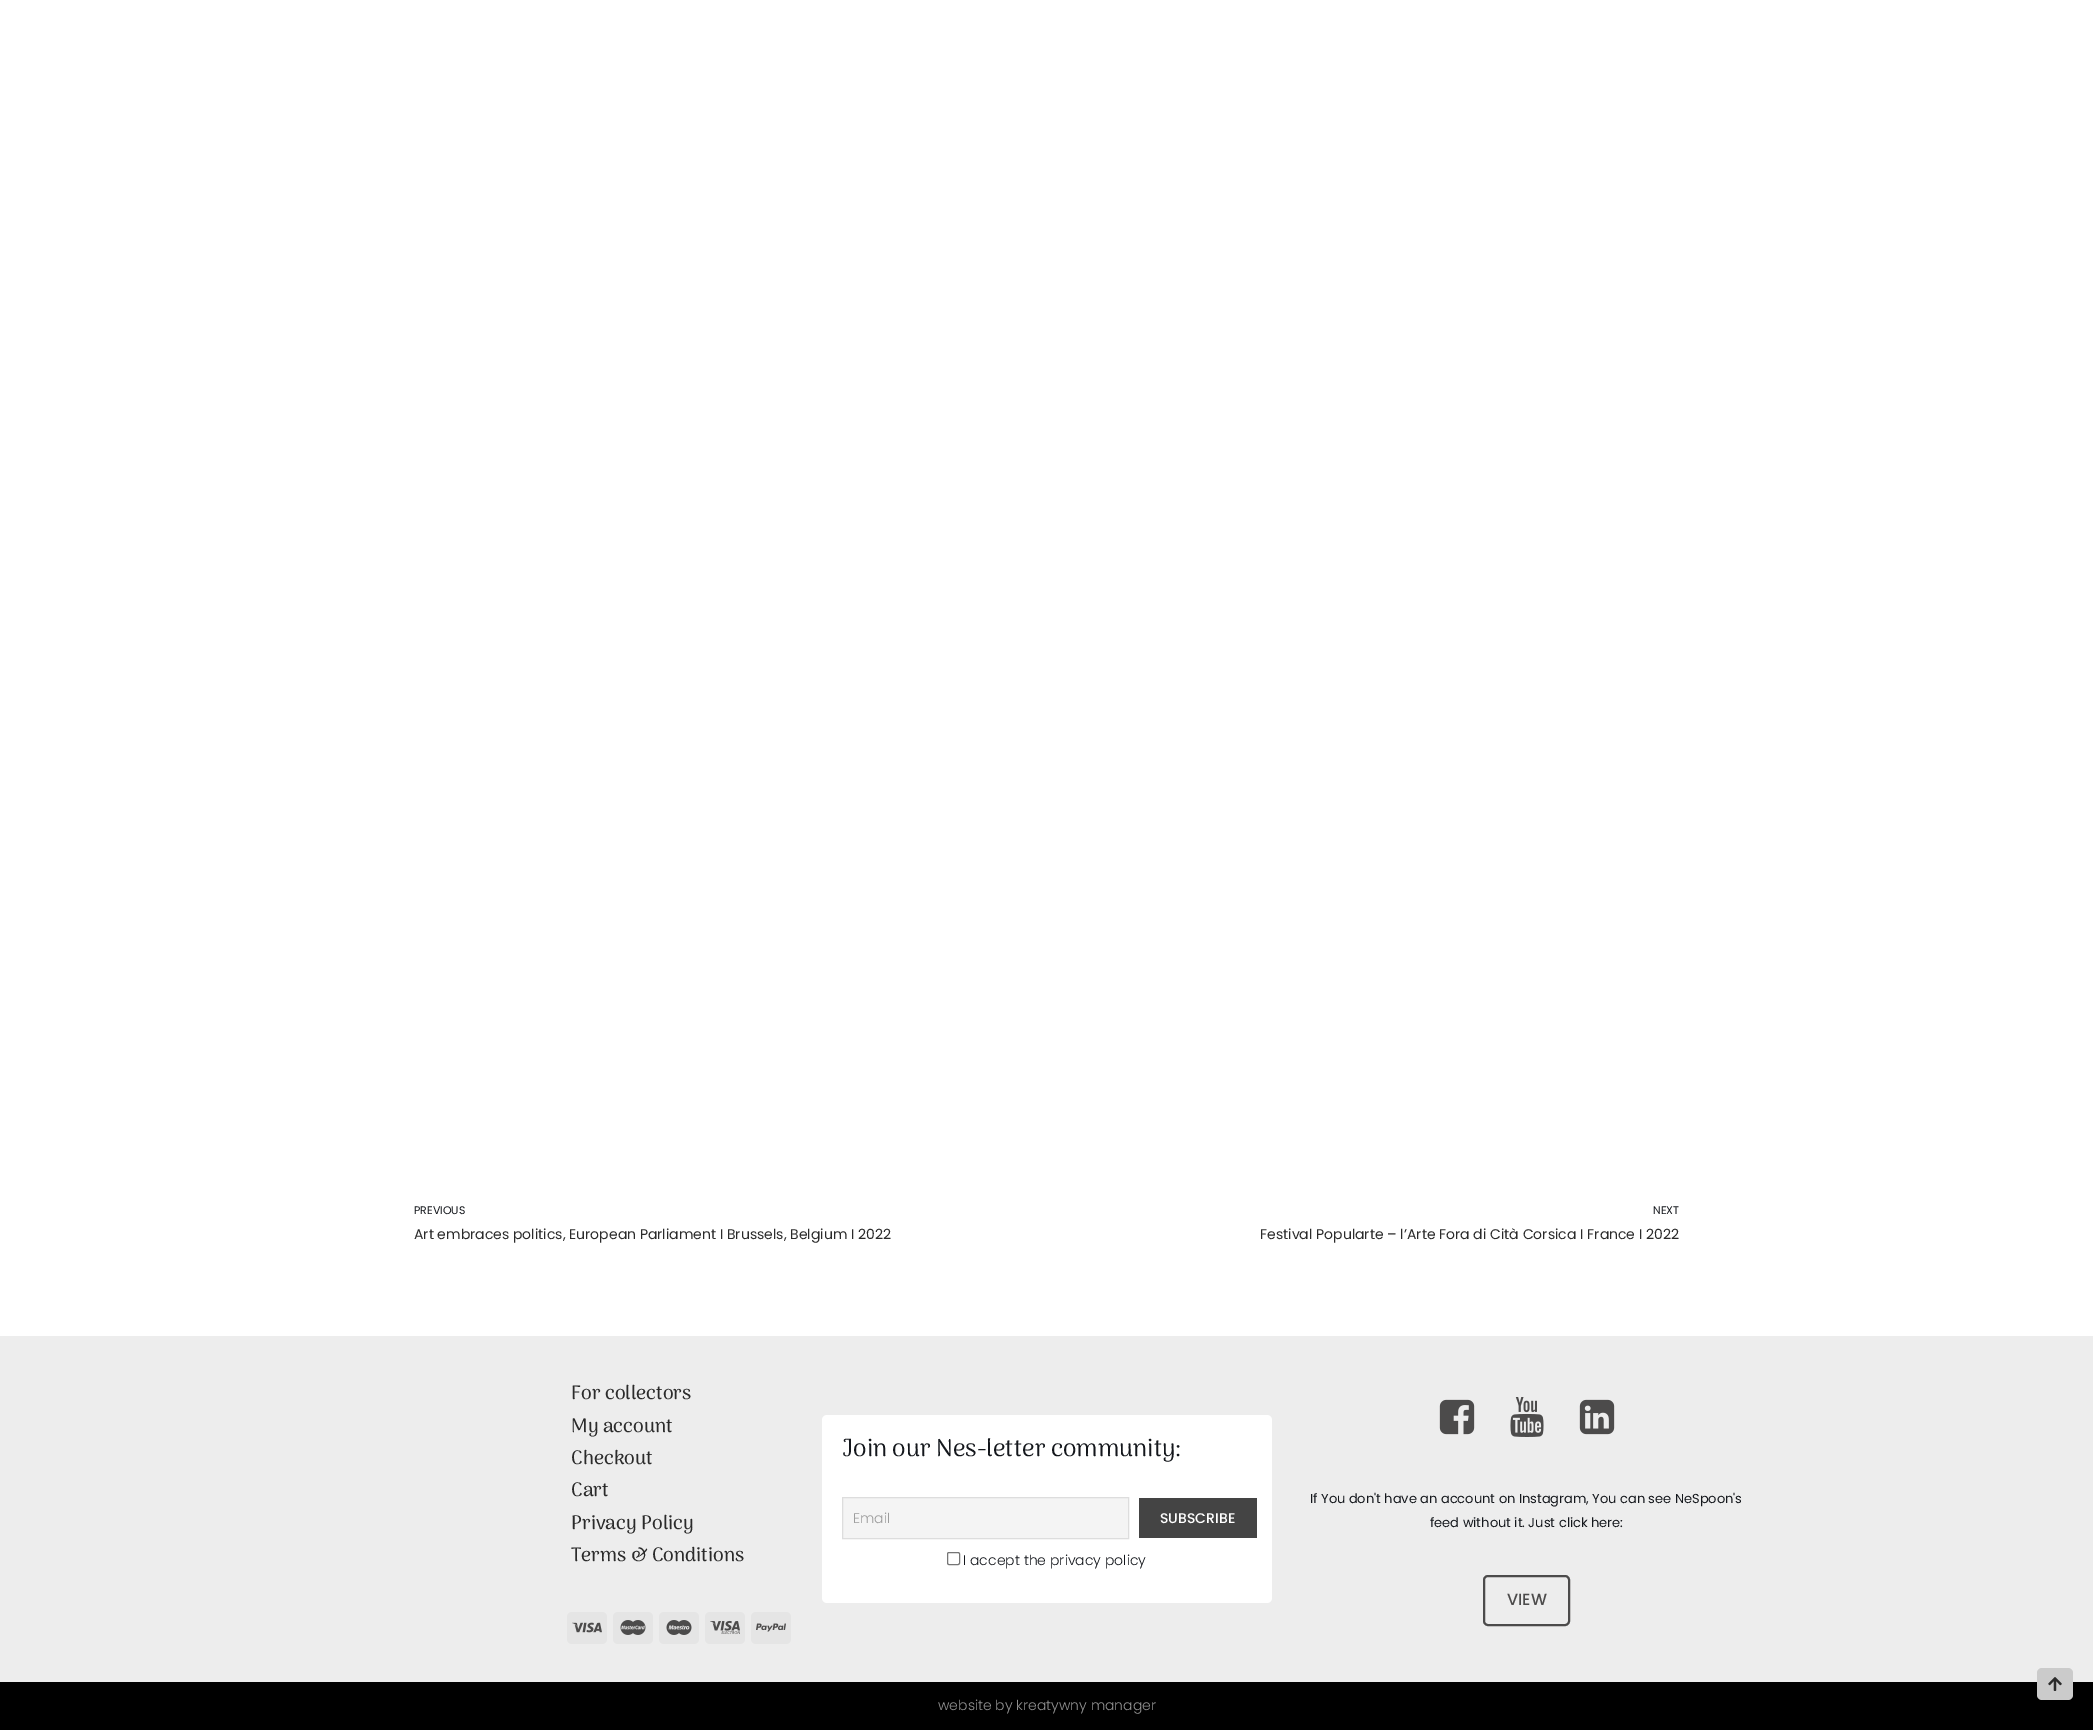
%!PS
<< /PageSize [2093 1730] >> setpagedevice
/roundrect { 5 dict begin { /r /h /w /y /x } { exch def } forall
  x r add y moveto x w add y 2 copy h add r arct x w add y h add x 1 index r arct
  x y h add x y r arct x y 2 copy exch w add exch r arct closepath end } def
/picture { 5 dict begin { /h /w /y /x /name } { exch def } forall
  gsave x y translate w h scale
  w h 8 [w 0 0 h 0 0] name (r) file false 3 colorimage grestore end } def
0 1730 translate 1 -1 scale
4 setmiterlimit
1 setgray
0 0 2093 1730 rectfill
/Poppins-Regular [11 0 0 -11 0 0] selectfont
0.078 0.09 0.11 setrgbcolor
414 1214 moveto (PREVIOUS) show
/Poppins-Regular [14 0 0 -14 0 0] selectfont
0.169 setgray
414 1239 moveto (Art embraces politics, European Parliament I Brussels, Belgium I 2022) show
/Poppins-Regular [11 0 0 -11 0 0] selectfont
0.078 0.09 0.11 setrgbcolor
1653 1214 moveto (NEXT) show
/Poppins-Regular [14 0 0 -14 0 0] selectfont
0.169 setgray
1260 1239 moveto (Festival Popularte – l’Arte Fora di Cità Corsica I France I 2022) show
0.929 setgray
0 1336 2093 346 rectfill
/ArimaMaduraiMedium-Medium [19.5 0 0 -19.5 0 0] selectfont
0.169 setgray
571 1399 moveto (For collectors) show
571 1432 moveto (My account) show
571 1464 moveto (Checkout) show
571 1496 moveto (Cart) show
571 1529 moveto (Privacy Policy) show
571 1561 moveto (Terms & Conditions) show
0.898 setgray
567 1612 40 32 5 roundrect fill
(img1.rgb) 572 1622 30 11 picture
613 1612 40 32 5 roundrect fill
(img2.rgb) 620 1620 26 15 picture
659 1612 40 32 5 roundrect fill
(img3.rgb) 666 1620 26 15 picture
705 1612 40 32 5 roundrect fill
(img4.rgb) 710 1620 30 15 picture
751 1612 40 32 5 roundrect fill
(img5.rgb) 756 1623 30 9 picture
1 setgray
822 1415 450 188 5 roundrect fill
/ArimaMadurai-Regular [24.5 0 0 -24.5 0 0] selectfont
0.078 0.09 0.11 setrgbcolor
842 1456 moveto (Join our Nes-letter community:) show
0.957 setgray
newpath 842.5 1497.5 moveto 1128.5 1497.5 lineto 1128.5 1538.5 lineto 842.5 1538.5 lineto closepath gsave fill grestore
0.867 setgray
stroke
/Poppins-Light [14 0 0 -14 0 0] selectfont
0.612 setgray
853 1523 moveto (Email) show
0.267 setgray
1139 1498 118 40 rectfill
/Poppins-Medium [14 0 0 -14 0 0] selectfont
1 setgray
1160 1523 moveto (SUBSCRIBE) show
0.463 setgray
947.5 1552.5 12 12 1.5 roundrect stroke
/Poppins-Light [14 0 0 -14 0 0] selectfont
0.078 0.09 0.11 setrgbcolor
963 1565 moveto (I accept the privacy policy) show
(img6.rgb) 1439 1399 36 36 picture
(img7.rgb) 1510 1397 34 40 picture
(img8.rgb) 1579 1399 36 36 picture
/Poppins-Regular [13 0 0 -13 0 0] selectfont
1310 1503 moveto (If You don't have an account on Instagram, You can see NeSpoon's) show
1430 1527 moveto (feed without it. Just click here:) show
0.298 0.294 0.294 setrgbcolor
2 setlinewidth
1484 1576 85 49 4 roundrect stroke
/Poppins-Medium [16 0 0 -16 0 0] selectfont
1507 1605 moveto (VIEW) show
0 setgray
0 1682 2093 48 rectfill
/Poppins-Light [14 0 0 -14 0 0] selectfont
0.576 setgray
938 1710 moveto (website by kreatywny manager) show
0.796 setgray
2037 1668 36 32 5 roundrect fill
(img9.rgb) 2048 1677 14 14 picture
showpage
